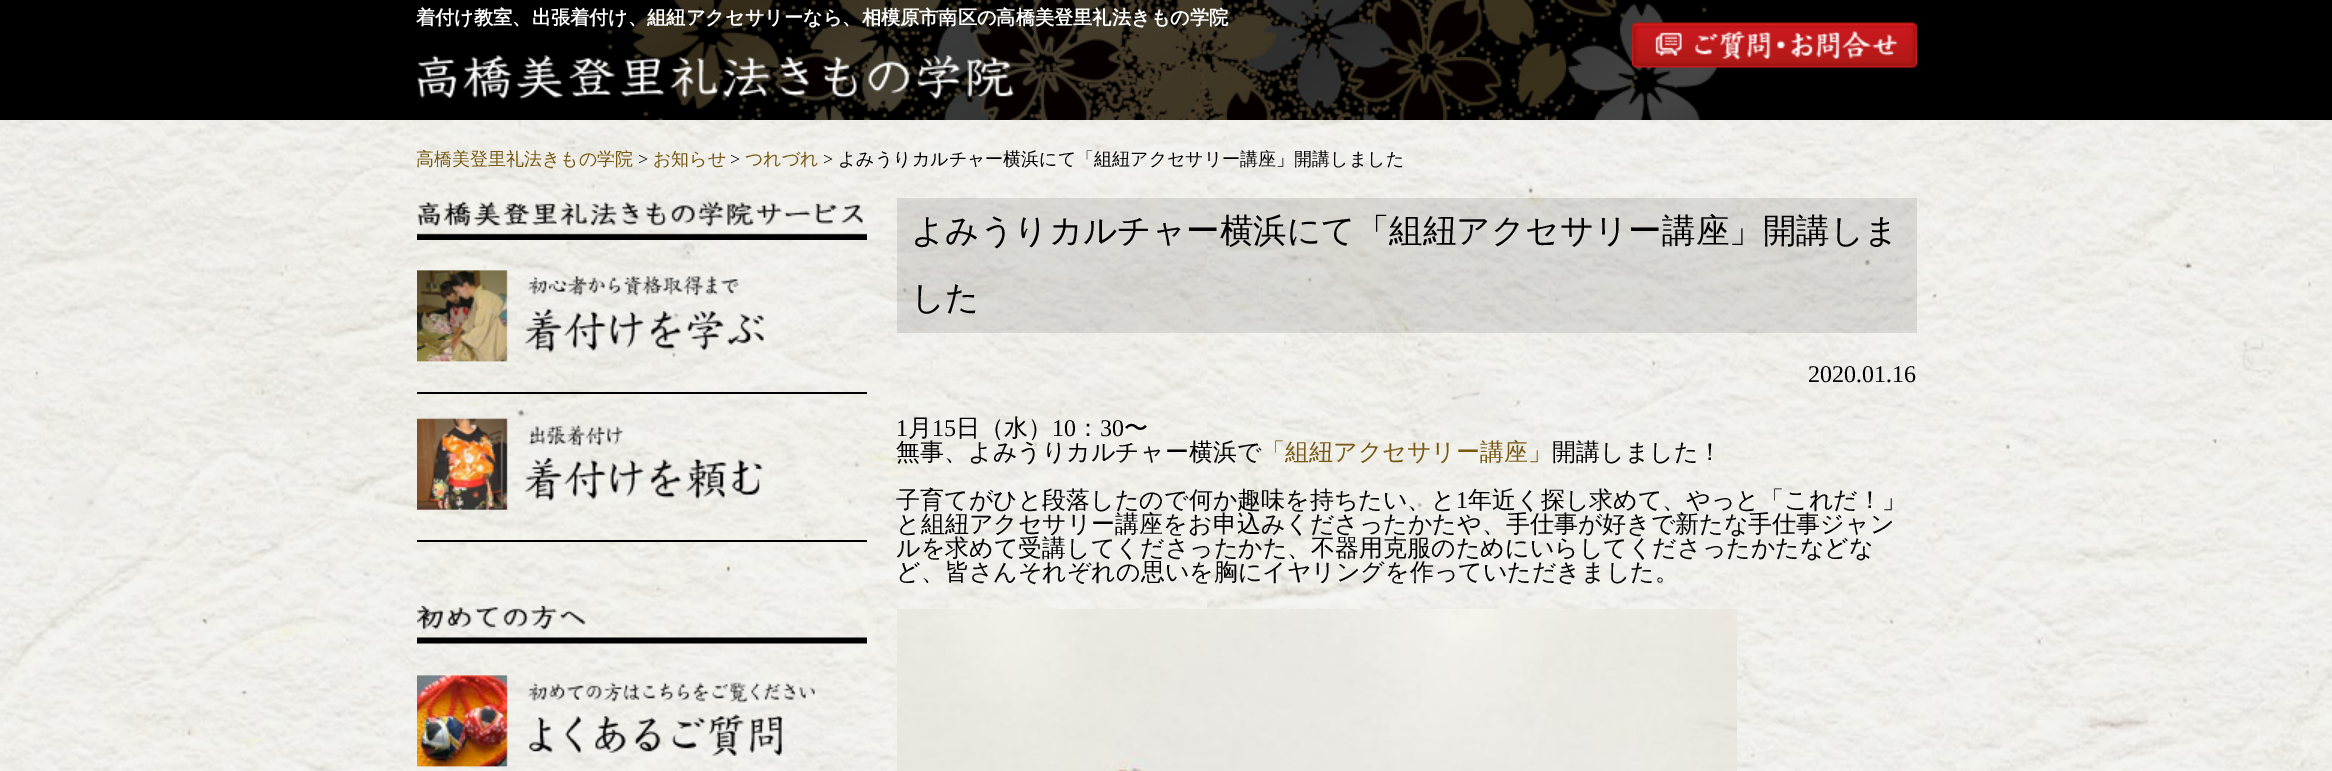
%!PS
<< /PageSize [2332 771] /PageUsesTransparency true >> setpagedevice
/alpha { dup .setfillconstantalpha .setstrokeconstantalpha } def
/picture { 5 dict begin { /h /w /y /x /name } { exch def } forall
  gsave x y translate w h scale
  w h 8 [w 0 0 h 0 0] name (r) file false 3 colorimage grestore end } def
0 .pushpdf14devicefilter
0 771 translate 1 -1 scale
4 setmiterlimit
1 setgray
0 0 2332 771 rectfill
(img1.rgb) 0 120 2332 651 picture
0 setgray
0 0 2332 120 rectfill
(img2.rgb) 417 0 1309 120 picture
/WenQuanYiZenHei-Bold [19.2 0 0 -19.2 0 0] selectfont
1 setgray
416 24 moveto (着付け教室、出張着付け、組紐アクセサリーなら、相模原市南区の高橋美登里礼法きもの学院) show
(img3.rgb) 1632 22 285 46 picture
/WenQuanYiZenHei-Medium [18 0 0 -18 0 0] selectfont
0.459 0.345 0.071 setrgbcolor
416 165 moveto (高橋美登里礼法きもの学院) show
/LiberationSerif-Regular [18 0 0 -18 0 0] selectfont
0 setgray
638 165 moveto (>) show
/WenQuanYiZenHei-Medium [18 0 0 -18 0 0] selectfont
0.459 0.345 0.071 setrgbcolor
653 165 moveto (お知らせ) show
/LiberationSerif-Regular [18 0 0 -18 0 0] selectfont
0 setgray
730 165 moveto (>) show
/WenQuanYiZenHei-Medium [18 0 0 -18 0 0] selectfont
0.459 0.345 0.071 setrgbcolor
745 165 moveto (つれづれ) show
/LiberationSerif-Regular [18 0 0 -18 0 0] selectfont
0 setgray
823 165 moveto (>) show
/WenQuanYiZenHei-Medium [18 0 0 -18 0 0] selectfont
838 165 moveto (よみうりカルチャー横浜にて「組紐アクセサリー講座」開講しました) show
(img4.rgb) 417 200 450 40 picture
417 392 450 2 rectfill
(img5.rgb) 417 270 347 92 picture
417 540 450 2 rectfill
(img6.rgb) 417 418 346 92 picture
(img7.rgb) 417 605 450 39 picture
(img8.rgb) 417 675 398 92 picture
0.1 alpha
897 198 1020 135 rectfill
/WenQuanYiZenHei-Medium [33.6 0 0 -33.6 0 0] selectfont
1 alpha
911 242 moveto (よみうりカルチャー横浜にて「組紐アクセサリー講座」開講しま) show
911 309 moveto (した) show
/LiberationSerif-Regular [24 0 0 -24 0 0] selectfont
1808 382 moveto (2020.01.16) show
896 436 moveto (1) show
/WenQuanYiZenHei-Medium [24 0 0 -24 0 0] selectfont
908 436 moveto (月) show
/LiberationSerif-Regular [24 0 0 -24 0 0] selectfont
932 436 moveto (15) show
/WenQuanYiZenHei-Medium [24 0 0 -24 0 0] selectfont
956 436 moveto (日（水）) show
/LiberationSerif-Regular [24 0 0 -24 0 0] selectfont
1052 436 moveto (10) show
/WenQuanYiZenHei-Medium [24 0 0 -24 0 0] selectfont
1076 436 moveto (：) show
/LiberationSerif-Regular [24 0 0 -24 0 0] selectfont
1100 436 moveto (30) show
/WenQuanYiZenHei-Medium [24 0 0 -24 0 0] selectfont
1124 436 moveto (〜) show
896 460 moveto (無事、よみうりカルチャー横浜で) show
0.459 0.345 0.071 setrgbcolor
1261 460 moveto (「組紐アクセサリー講座」) show
0 setgray
1552 460 moveto (開講しました！) show
896 508 moveto (子育てがひと段落したので何か趣味を持ちたい、と) show
/LiberationSerif-Regular [24 0 0 -24 0 0] selectfont
1456 508 moveto (1) show
/WenQuanYiZenHei-Medium [24 0 0 -24 0 0] selectfont
1468 508 moveto (年近く探し求めて、やっと「これだ！」) show
896 532 moveto (と組紐アクセサリー講座をお申込みくださったかたや、手仕事が好きで新たな手仕事ジャン) show
896 556 moveto (ルを求めて受講してくださったかた、不器用克服のためにいらしてくださったかたなどな) show
896 580 moveto (ど、皆さんそれぞれの思いを胸にイヤリングを作っていただきました。) show
(img9.rgb) 897 609 840 162 picture
.poppdf14devicefilter showpage
